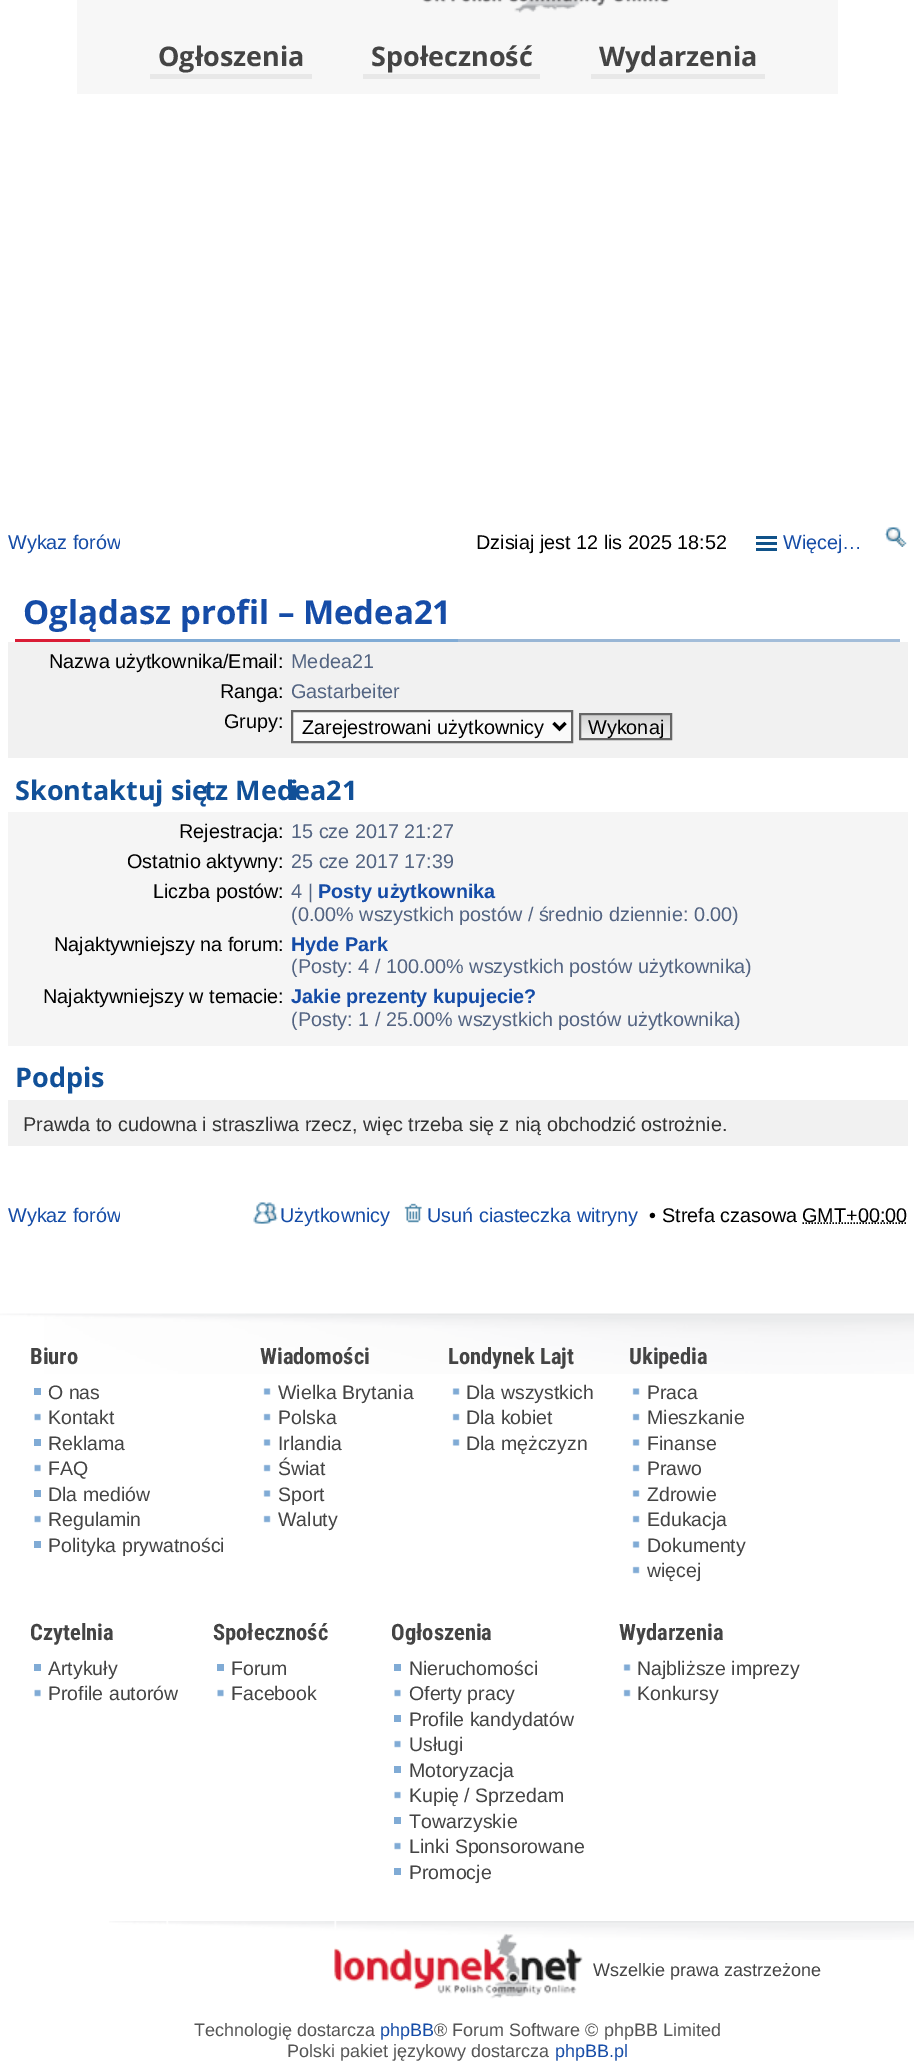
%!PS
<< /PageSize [914 2068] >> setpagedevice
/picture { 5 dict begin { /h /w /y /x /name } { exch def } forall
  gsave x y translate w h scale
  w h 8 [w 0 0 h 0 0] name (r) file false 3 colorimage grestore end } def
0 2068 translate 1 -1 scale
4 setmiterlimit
1 setgray
0 0 914 2068 rectfill
0.969 setgray
77 0 761 94 rectfill
(img1.rgb) 422 0 248 13 picture
/OpenSans-Bold [27 0 0 -27 0 0] selectfont
0.267 setgray
158 66 moveto (Ogłoszenia) show
0.91 setgray
150 74 162 5 rectfill
0.267 setgray
371 66 moveto (Społeczność) show
0.91 setgray
363 74 177 5 rectfill
0.267 setgray
599 66 moveto (Wydarzenia) show
0.91 setgray
591 74 174 5 rectfill
gsave
8 521 112 43 rectclip
/LiberationSans-Regular [19.8 0 0 -19.8 0 0] selectfont
0.082 0.298 0.655 setrgbcolor
8 549 moveto (Wykaz forów) show
grestore
/LiberationSans-Regular [19.8 0 0 -19.8 0 0] selectfont
0 setgray
476 549 moveto (Dzisiaj jest 12 lis 2025 18:52) show
0.063 0.322 0.537 setrgbcolor
756 536 21 3 rectfill
756 542 21 3 rectfill
756 548 21 3 rectfill
0.082 0.298 0.655 setrgbcolor
783 549 moveto (Więcej…) show
(img2.rgb) 884 527 23 20 picture
0.502 0.671 0.835 setrgbcolor
90 639 368 3 rectfill
0.6 0.714 0.835 setrgbcolor
458 639 222 3 rectfill
0.639 0.741 0.851 setrgbcolor
680 639 220 3 rectfill
0.855 0.114 0.212 setrgbcolor
15 639 75 3 rectfill
/OpenSans-Bold [33 0 0 -33 0 0] selectfont
0.082 0.298 0.655 setrgbcolor
23 624 moveto (Oglądasz profil – Medea21) show
0.945 setgray
8 642 900 116 rectfill
/LiberationSans-Regular [19.8 0 0 -19.8 0 0] selectfont
0 setgray
49 668 moveto (Nazwa użytkownika/Email:) show
0.325 0.392 0.51 setrgbcolor
291 668 moveto (Medea21) show
0 setgray
220 698 moveto (Ranga:) show
0.325 0.392 0.51 setrgbcolor
291 698 moveto (Gastarbeiter) show
0 setgray
224 728 moveto (Grupy:) show
0.98 setgray
newpath 292 711 moveto 572 711 lineto 572 742 lineto 292 742 lineto closepath gsave fill grestore
0.4 setgray
2 setlinewidth
stroke
0 setgray
3 setlinewidth
newpath 553.5 723 moveto 559.5 729 lineto 565.5 723 lineto stroke
302 734 moveto (Zarejestrowani użytkownicy) show
(img3.rgb) 581 715 89 23 picture
0.4 setgray
2 setlinewidth
580 714 91 25 rectstroke
0 setgray
588 734 moveto (Wykonaj) show
0.961 setgray
8 812 900 234 rectfill
/OpenSans-Bold [27 0 0 -27 0 0] selectfont
0.067 0.314 0.596 setrgbcolor
15 800 moveto (Skontaktuj się z Medea21) show
204 800 moveto (t) show
290 800 moveto (i) show
/LiberationSans-Regular [19.8 0 0 -19.8 0 0] selectfont
0 setgray
179 838 moveto (Rejestracja:) show
0.325 0.392 0.51 setrgbcolor
291 838 moveto (15 cze 2017 21:27) show
0 setgray
127 868 moveto (Ostatnio aktywny:) show
0.325 0.392 0.51 setrgbcolor
291 868 moveto (25 cze 2017 17:39) show
0 setgray
153 898 moveto (Liczba postów:) show
0.325 0.392 0.51 setrgbcolor
291 898 moveto (4 |) show
/LiberationSans-Bold [19.8 0 0 -19.8 0 0] selectfont
0.082 0.298 0.655 setrgbcolor
318 898 moveto (Posty użytkownika) show
/LiberationSans-Regular [19.8 0 0 -19.8 0 0] selectfont
0.325 0.392 0.51 setrgbcolor
291 921 moveto (\(0.00% wszystkich postów / średnio dziennie: 0.00\)) show
0 setgray
54 951 moveto (Najaktywniejszy na forum:) show
/LiberationSans-Bold [19.8 0 0 -19.8 0 0] selectfont
0.082 0.298 0.655 setrgbcolor
291 951 moveto (Hyde Park) show
/LiberationSans-Regular [19.8 0 0 -19.8 0 0] selectfont
0.325 0.392 0.51 setrgbcolor
291 973 moveto (\(Posty: 4 / 100.00% wszystkich postów użytkownika\)) show
0 setgray
43 1003 moveto (Najaktywniejszy w temacie:) show
/LiberationSans-Bold [19.8 0 0 -19.8 0 0] selectfont
0.082 0.298 0.655 setrgbcolor
291 1003 moveto (Jakie prezenty kupujecie?) show
/LiberationSans-Regular [19.8 0 0 -19.8 0 0] selectfont
0.325 0.392 0.51 setrgbcolor
291 1026 moveto (\(Posty: 1 / 25.00% wszystkich postów użytkownika\)) show
0.945 setgray
8 1100 900 46 rectfill
/OpenSans-Bold [27 0 0 -27 0 0] selectfont
0.067 0.314 0.596 setrgbcolor
15 1087 moveto (Podpis) show
/LiberationSans-Regular [19.8 0 0 -19.8 0 0] selectfont
0.2 setgray
23 1131 moveto (Prawda to cudowna i straszliwa rzecz, więc trzeba się z nią obchodzić ostrożnie.) show
gsave
8 1193 112 43 rectclip
0.082 0.298 0.655 setrgbcolor
8 1222 moveto (Wykaz forów) show
grestore
(img4.rgb) 253 1202 25 22 picture
0.082 0.298 0.655 setrgbcolor
280 1222 moveto (Użytkownicy) show
(img5.rgb) 404 1203 18 20 picture
427 1222 moveto (Usuń ciasteczka witryny) show
0 setgray
649 1222 moveto (•) show
662 1222 moveto (Strefa czasowa) show
1.5 setlinewidth
[1.5 1.5] 0 setdash
newpath 802.5 1223 moveto 907.5 1223 lineto stroke
802 1222 moveto (GMT+00:00) show
(img6.rgb) 0 1313 914 61 picture
/RobotoCondensed-Bold [22.5 0 0 -22.5 0 0] selectfont
0.267 setgray
30 1364 moveto (Biuro) show
0.502 0.671 0.835 setrgbcolor
34 1388 7 7 rectfill
/LiberationSans-Regular [19.5 0 0 -19.5 0 0] selectfont
0.267 setgray
48 1399 moveto (O nas) show
(img7.rgb) 34 1413 7 8 picture
48 1424 moveto (Kontakt) show
0.502 0.671 0.835 setrgbcolor
34 1439 7 7 rectfill
0.267 setgray
48 1450 moveto (Reklama) show
(img7.rgb) 34 1464 7 8 picture
48 1475 moveto (FAQ) show
0.502 0.671 0.835 setrgbcolor
34 1490 7 7 rectfill
0.267 setgray
48 1501 moveto (Dla mediów) show
(img7.rgb) 34 1515 7 8 picture
48 1526 moveto (Regulamin) show
0.502 0.671 0.835 setrgbcolor
34 1541 7 7 rectfill
0.267 setgray
48 1552 moveto (Polityka prywatności) show
/RobotoCondensed-Bold [22.5 0 0 -22.5 0 0] selectfont
260 1364 moveto (Wiadomości) show
(img8.rgb) 263 1388 8 7 picture
/LiberationSans-Regular [19.5 0 0 -19.5 0 0] selectfont
278 1399 moveto (Wielka Brytania) show
(img9.rgb) 263 1413 8 8 picture
278 1424 moveto (Polska) show
(img8.rgb) 263 1439 8 7 picture
278 1450 moveto (Irlandia) show
(img9.rgb) 263 1464 8 8 picture
278 1475 moveto (Świat) show
(img8.rgb) 263 1490 8 7 picture
278 1501 moveto (Sport) show
(img9.rgb) 263 1515 8 8 picture
278 1526 moveto (Waluty) show
/RobotoCondensed-Bold [22.5 0 0 -22.5 0 0] selectfont
448 1364 moveto (Londynek Lajt) show
(img8.rgb) 452 1388 8 7 picture
/LiberationSans-Regular [19.5 0 0 -19.5 0 0] selectfont
466 1399 moveto (Dla wszystkich) show
(img9.rgb) 452 1413 8 8 picture
466 1424 moveto (Dla kobiet) show
(img8.rgb) 452 1439 8 7 picture
466 1450 moveto (Dla mężczyzn) show
/RobotoCondensed-Bold [22.5 0 0 -22.5 0 0] selectfont
629 1364 moveto (Ukipedia) show
(img8.rgb) 632 1388 8 7 picture
/LiberationSans-Regular [19.5 0 0 -19.5 0 0] selectfont
647 1399 moveto (Praca) show
(img9.rgb) 632 1413 8 8 picture
647 1424 moveto (Mieszkanie) show
(img8.rgb) 632 1439 8 7 picture
647 1450 moveto (Finanse) show
(img9.rgb) 632 1464 8 8 picture
647 1475 moveto (Prawo) show
(img8.rgb) 632 1490 8 7 picture
647 1501 moveto (Zdrowie) show
(img9.rgb) 632 1515 8 8 picture
647 1526 moveto (Edukacja) show
(img8.rgb) 632 1541 8 7 picture
647 1552 moveto (Dokumenty) show
(img9.rgb) 632 1566 8 8 picture
647 1577 moveto (więcej) show
/RobotoCondensed-Bold [22.5 0 0 -22.5 0 0] selectfont
30 1640 moveto (Czytelnia) show
0.502 0.671 0.835 setrgbcolor
34 1664 7 7 rectfill
/LiberationSans-Regular [19.5 0 0 -19.5 0 0] selectfont
0.267 setgray
48 1675 moveto (Artykuły) show
(img7.rgb) 34 1689 7 8 picture
48 1700 moveto (Profile autorów) show
/RobotoCondensed-Bold [22.5 0 0 -22.5 0 0] selectfont
213 1640 moveto (Społeczność) show
0.502 0.671 0.835 setrgbcolor
217 1664 7 7 rectfill
/LiberationSans-Regular [19.5 0 0 -19.5 0 0] selectfont
0.267 setgray
231 1675 moveto (Forum) show
(img10.rgb) 217 1689 7 8 picture
231 1700 moveto (Facebook) show
/RobotoCondensed-Bold [22.5 0 0 -22.5 0 0] selectfont
391 1640 moveto (Ogłoszenia) show
0.502 0.671 0.835 setrgbcolor
394 1664 7 7 rectfill
/LiberationSans-Regular [19.5 0 0 -19.5 0 0] selectfont
0.267 setgray
409 1675 moveto (Nieruchomości) show
(img10.rgb) 394 1689 7 8 picture
409 1700 moveto (Oferty pracy) show
0.502 0.671 0.835 setrgbcolor
394 1715 7 7 rectfill
0.267 setgray
409 1726 moveto (Profile kandydatów) show
(img10.rgb) 394 1740 7 8 picture
409 1751 moveto (Usługi) show
0.502 0.671 0.835 setrgbcolor
394 1766 7 7 rectfill
0.267 setgray
409 1777 moveto (Motoryzacja) show
(img10.rgb) 394 1791 7 8 picture
409 1802 moveto (Kupię / Sprzedam) show
0.502 0.671 0.835 setrgbcolor
394 1817 7 7 rectfill
0.267 setgray
409 1828 moveto (Towarzyskie) show
(img10.rgb) 394 1842 7 8 picture
409 1853 moveto (Linki Sponsorowane) show
0.502 0.671 0.835 setrgbcolor
394 1868 7 7 rectfill
0.267 setgray
409 1879 moveto (Promocje) show
/RobotoCondensed-Bold [22.5 0 0 -22.5 0 0] selectfont
619 1640 moveto (Wydarzenia) show
(img11.rgb) 623 1664 8 7 picture
/LiberationSans-Regular [19.5 0 0 -19.5 0 0] selectfont
637 1675 moveto (Najbliższe imprezy) show
(img12.rgb) 623 1689 8 8 picture
637 1700 moveto (Konkursy) show
(img13.rgb) 109 1921 805 19 picture
(img14.rgb) 334 1933 249 66 picture
/LiberationSans-Regular [18 0 0 -18 0 0] selectfont
593 1976 moveto (Wszelkie prawa zastrzeżone) show
0.333 setgray
194 2036 moveto (Technologię dostarcza) show
0.082 0.298 0.655 setrgbcolor
380 2036 moveto (phpBB) show
0.333 setgray
434 2036 moveto (® Forum Software © phpBB Limited) show
287 2057 moveto (Polski pakiet językowy dostarcza) show
0.082 0.298 0.655 setrgbcolor
555 2057 moveto (phpBB.pl) show
showpage
